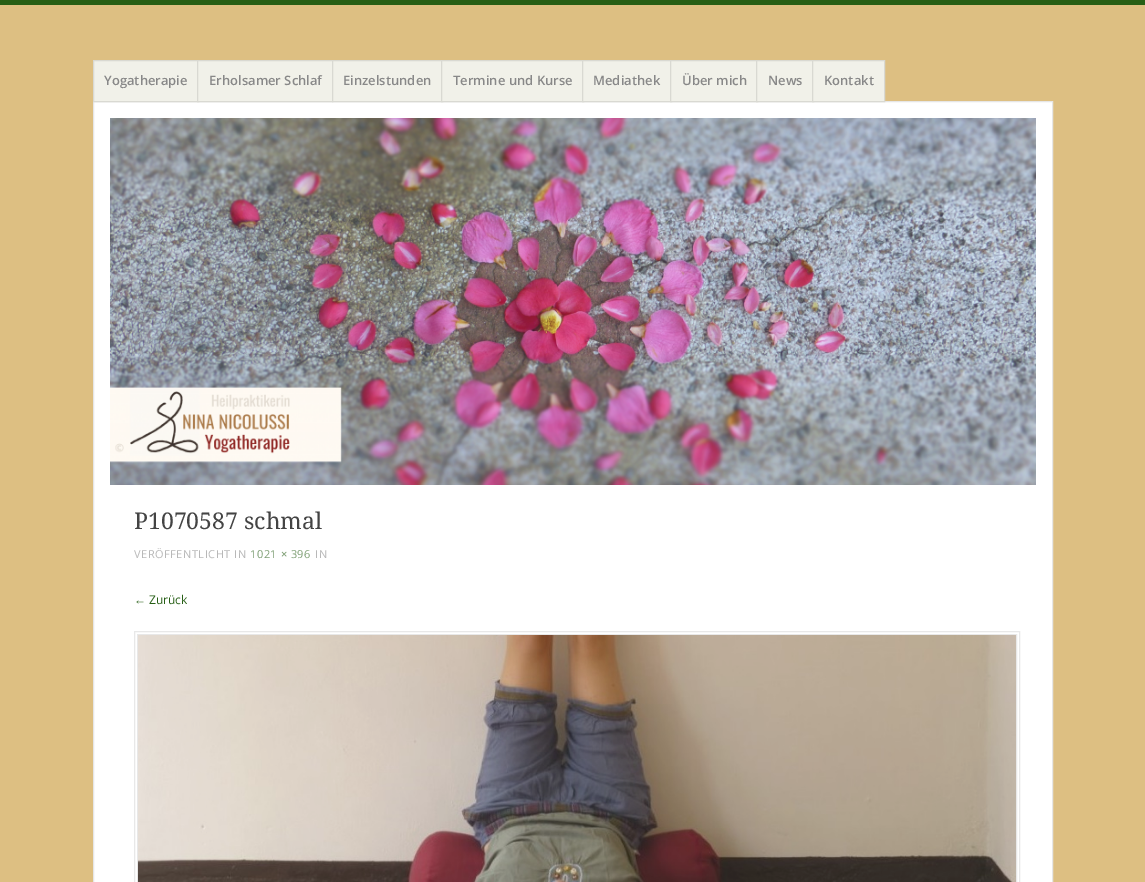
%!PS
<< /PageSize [1145 882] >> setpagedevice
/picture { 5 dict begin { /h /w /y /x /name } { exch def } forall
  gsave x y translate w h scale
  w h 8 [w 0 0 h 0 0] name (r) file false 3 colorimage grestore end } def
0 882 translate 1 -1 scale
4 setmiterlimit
0.867 0.749 0.51 setrgbcolor
0 0 1145 882 rectfill
0.149 0.369 0.082 setrgbcolor
0 0 1145 5 rectfill
0.945 0.945 0.914 setrgbcolor
94 61 103 40 rectfill
1 setgray
newpath 93.5 101.5 moveto 1052.5 101.5 lineto 1052.5 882.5 lineto 93.5 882.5 lineto closepath gsave fill grestore
0.902 setgray
stroke
0.851 0.851 0.824 setrgbcolor
93.5 60.5 105 41 rectstroke
/OpenSans-SemiBold [13 0 0 -13 0 0] selectfont
0.533 setgray
104 85 moveto (Yogatherapie) show
0.945 0.945 0.914 setrgbcolor
newpath 197.5 60.5 moveto 332.5 60.5 lineto 332.5 101.5 lineto 197.5 101.5 lineto closepath gsave fill grestore
0.851 0.851 0.824 setrgbcolor
stroke
0.533 setgray
209 85 moveto (Erholsamer Schlaf) show
0.945 0.945 0.914 setrgbcolor
333 61 108 40 rectfill
0.851 0.851 0.824 setrgbcolor
332.5 60.5 110 41 rectstroke
0.533 setgray
343 85 moveto (Einzelstunden) show
0.945 0.945 0.914 setrgbcolor
442 61 140 40 rectfill
0.851 0.851 0.824 setrgbcolor
441.5 60.5 142 41 rectstroke
0.533 setgray
453 85 moveto (Termine und Kurse) show
0.945 0.945 0.914 setrgbcolor
583 61 87 40 rectfill
0.851 0.851 0.824 setrgbcolor
582.5 60.5 89 41 rectstroke
0.533 setgray
593 85 moveto (Mediathek) show
0.945 0.945 0.914 setrgbcolor
671 61 85 40 rectfill
0.851 0.851 0.824 setrgbcolor
670.5 60.5 87 41 rectstroke
0.533 setgray
682 85 moveto (Über mich) show
0.945 0.945 0.914 setrgbcolor
757 61 55 40 rectfill
0.851 0.851 0.824 setrgbcolor
756.5 60.5 57 41 rectstroke
0.533 setgray
768 85 moveto (News) show
0.945 0.945 0.914 setrgbcolor
newpath 812.5 60.5 moveto 884.5 60.5 lineto 884.5 101.5 lineto 812.5 101.5 lineto closepath gsave fill grestore
0.851 0.851 0.824 setrgbcolor
stroke
0.533 setgray
824 85 moveto (Kontakt) show
(img1.rgb) 110 118 926 367 picture
/DroidSerif-Regular [23 0 0 -23 0 0] selectfont
0.267 setgray
134 529 moveto (P1070587 schmal) show
/OpenSans-Regular [11 0 0 -11 0 0] selectfont
0.722 setgray
134 558 moveto 0.5 0 (VERÖFFENTLICHT IN) ashow
0.49 0.62 0.451 setrgbcolor
250 558 moveto 0.5 0 (1021 × 396) ashow
0.722 setgray
315 558 moveto 0.5 0 (IN) ashow
/LiberationSans-Regular [12 0 0 -12 0 0] selectfont
0.149 0.369 0.082 setrgbcolor
134 604 moveto (←) show
/OpenSans-Regular [12 0 0 -12 0 0] selectfont
149 604 moveto (Zurück) show
0.91 setgray
134.5 631.5 885 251 rectstroke
137.5 634.5 879 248 rectstroke
(img2.rgb) 138 635 878 247 picture
showpage
